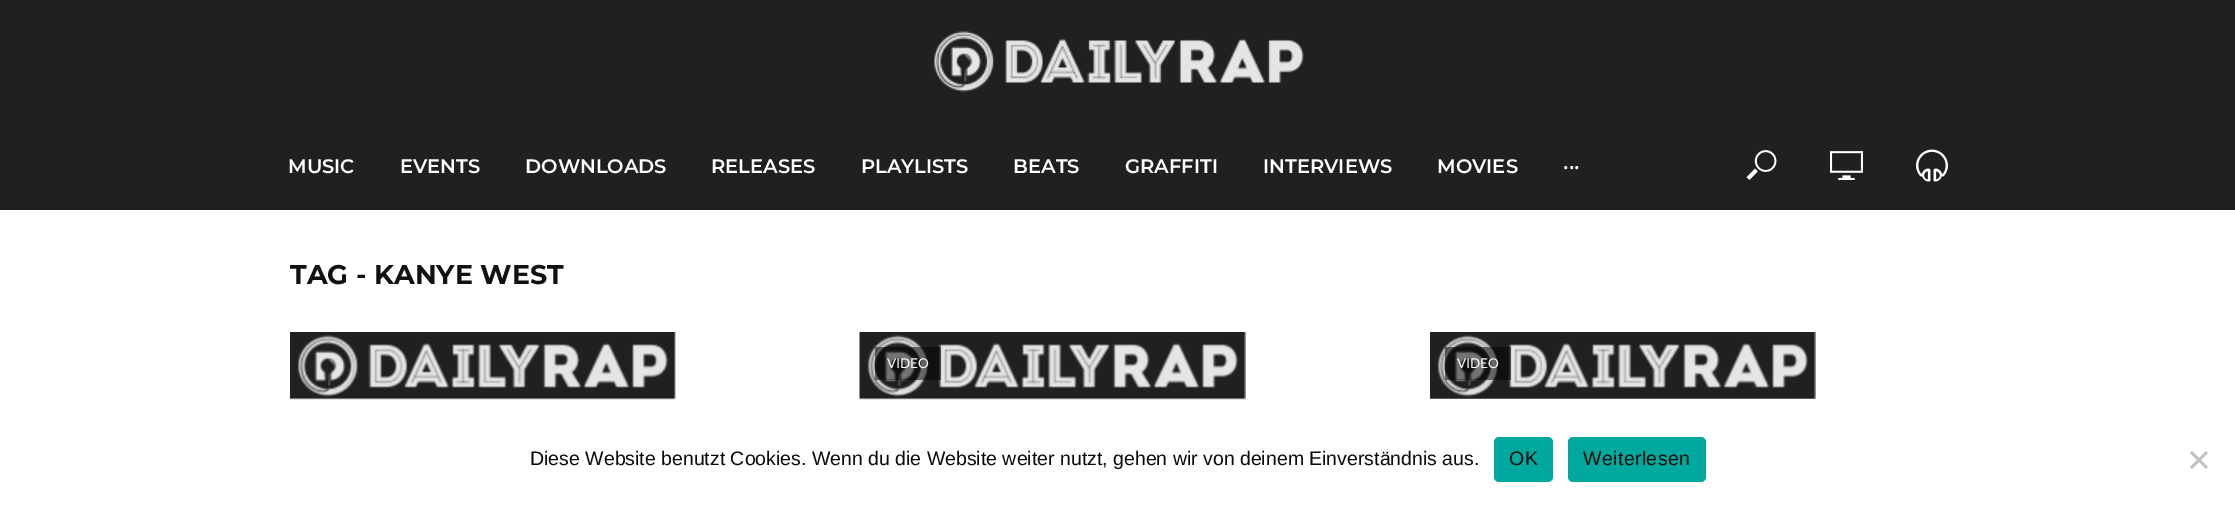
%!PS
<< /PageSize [2235 505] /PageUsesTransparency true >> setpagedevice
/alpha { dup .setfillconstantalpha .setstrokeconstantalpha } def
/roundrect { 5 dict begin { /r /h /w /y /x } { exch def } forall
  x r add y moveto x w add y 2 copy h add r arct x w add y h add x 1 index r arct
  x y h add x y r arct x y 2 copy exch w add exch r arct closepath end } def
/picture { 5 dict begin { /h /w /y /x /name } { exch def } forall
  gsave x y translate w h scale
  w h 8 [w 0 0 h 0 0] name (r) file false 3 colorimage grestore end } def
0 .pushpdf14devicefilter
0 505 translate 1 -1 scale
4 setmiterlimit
1 setgray
0 0 2235 505 rectfill
0.129 0.125 0.125 setrgbcolor
0 0 2235 210 rectfill
(img1.rgb) 934 31 370 61 picture
/Montserrat-SemiBold [19.5 0 0 -19.5 0 0] selectfont
1 setgray
288 173 moveto (MUSIC) show
400 173 moveto (EVENTS) show
525 173 moveto (DOWNLOADS) show
711 173 moveto (RELEASES) show
861 173 moveto (PLAYLISTS) show
1013 173 moveto (BEATS) show
1125 173 moveto (GRAFFITI) show
1263 173 moveto (INTERVIEWS) show
1437 173 moveto (MOVIES) show
1563 173 moveto (···) show
(img2.rgb) 1746 150 31 30 picture
(img3.rgb) 1830 151 33 29 picture
(img4.rgb) 1916 149 32 33 picture
/Montserrat-Bold [27 0 0 -27 0 0] selectfont
0.067 setgray
290 284 moveto (TAG - KANYE WEST) show
(img5.rgb) 290 332 386 68 picture
(img6.rgb) 859 332 387 68 picture
0.5 alpha
0 setgray
875 347 66 33 rectfill
/Lato-Regular [13.5 0 0 -13.5 0 0] selectfont
1 alpha
1 setgray
887 368 moveto (VIDEO) show
(img7.rgb) 1430 332 386 67 picture
0.5 alpha
0 setgray
1445 347 66 33 rectfill
1 alpha
1 setgray
1457 368 moveto (VIDEO) show
/LiberationSans-Regular [19.5 0 0 -19.5 0 0] selectfont
0.039 setgray
530 465 moveto (Diese Website benutzt Cookies. Wenn du die Website weiter nutzt, gehen wir von deinem Einverständnis aus.) show
0 0.663 0.616 setrgbcolor
1494 437 59 45 5 roundrect fill
0.039 setgray
1509 465 moveto 0.4 0 (OK) ashow
0 0.663 0.616 setrgbcolor
1568 437 138 45 5 roundrect fill
0.039 setgray
1583 465 moveto 0.4 0 (Weiterlesen) ashow
0.753 setgray
newpath 2206 451 moveto 2208 453 lineto 2192 469 lineto 2190 467 lineto closepath fill
newpath 2190 453 moveto 2192 451 lineto 2208 467 lineto 2206 469 lineto closepath fill
.poppdf14devicefilter showpage
